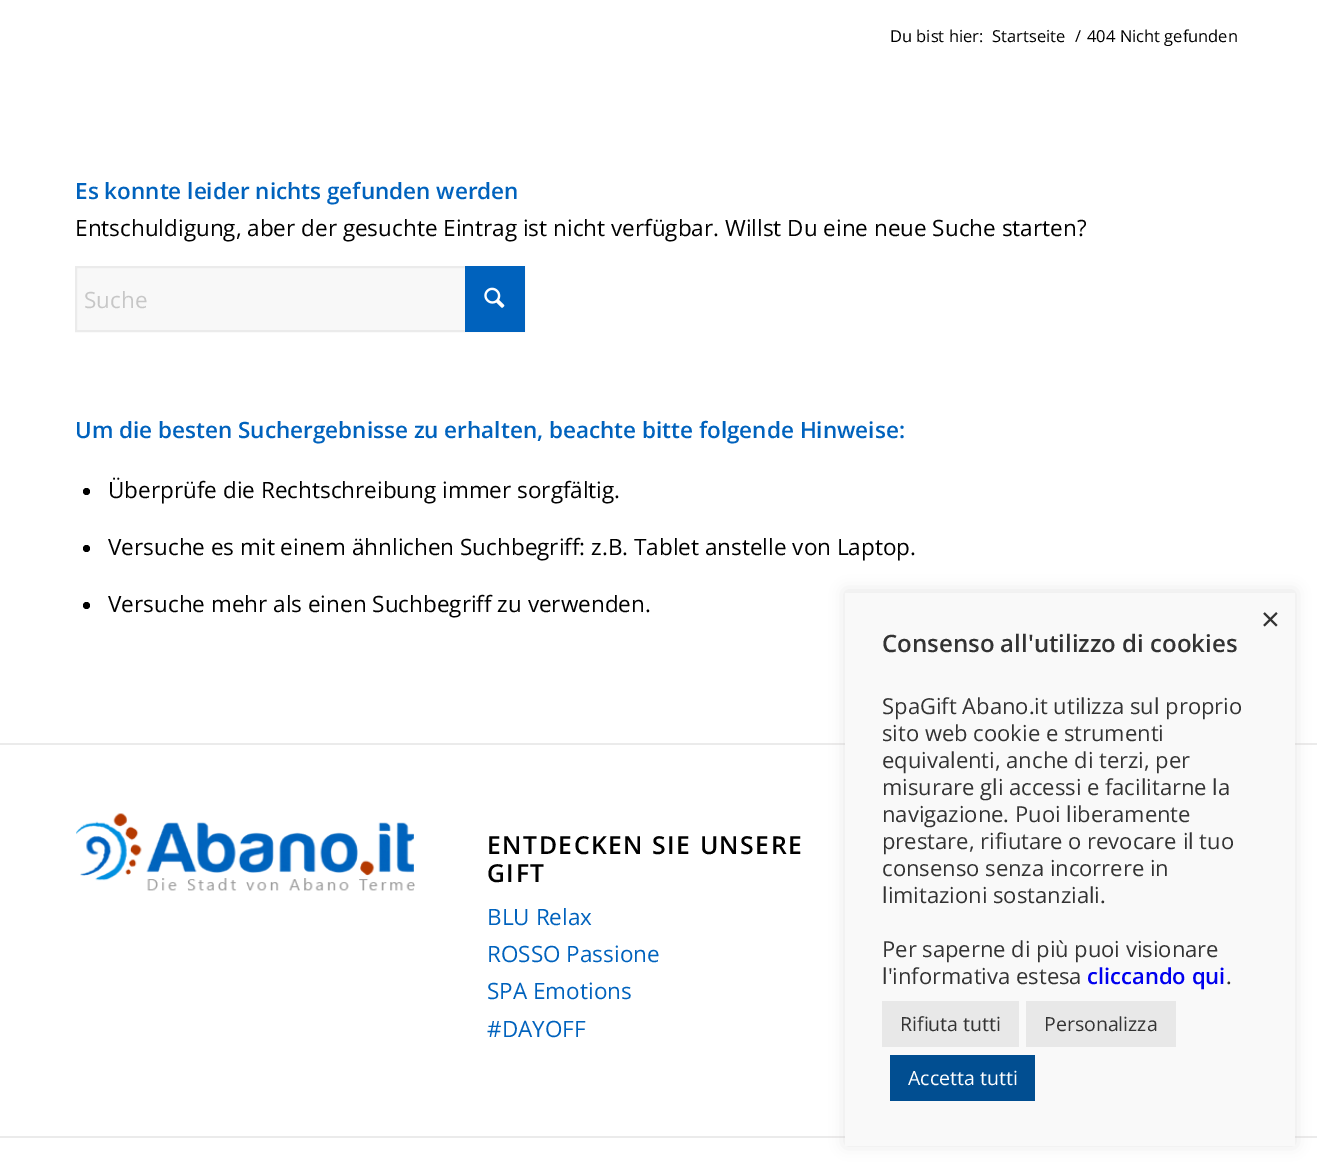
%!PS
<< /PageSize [1317 1168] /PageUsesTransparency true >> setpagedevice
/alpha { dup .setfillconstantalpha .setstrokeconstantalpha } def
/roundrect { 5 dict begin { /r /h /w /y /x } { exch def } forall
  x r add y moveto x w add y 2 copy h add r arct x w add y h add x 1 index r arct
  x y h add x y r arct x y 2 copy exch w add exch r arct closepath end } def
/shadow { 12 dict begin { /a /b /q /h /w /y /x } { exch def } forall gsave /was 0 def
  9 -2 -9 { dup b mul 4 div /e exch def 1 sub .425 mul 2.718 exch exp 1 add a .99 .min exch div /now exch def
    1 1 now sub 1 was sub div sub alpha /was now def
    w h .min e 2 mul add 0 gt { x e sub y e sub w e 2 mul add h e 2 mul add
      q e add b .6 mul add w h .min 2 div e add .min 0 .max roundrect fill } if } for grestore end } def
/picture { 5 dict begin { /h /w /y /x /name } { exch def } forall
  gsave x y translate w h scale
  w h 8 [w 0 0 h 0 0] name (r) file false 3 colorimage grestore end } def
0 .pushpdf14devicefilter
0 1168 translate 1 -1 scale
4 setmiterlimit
1 setgray
0 0 1317 1168 rectfill
/OpenSans-Regular [16.5 0 0 -16.5 0 0] selectfont
0 setgray
890 42 moveto (Du bist hier:) show
992 42 moveto (Startseite) show
1075 42 moveto (/) show
1087 42 moveto (404 Nicht gefunden) show
/OpenSans-SemiBold [22.5 0 0 -22.5 0 0] selectfont
0 0.384 0.741 setrgbcolor
75 199 moveto (Es konnte leider nichts gefunden werden) show
/OpenSans-Regular [22.5 0 0 -22.5 0 0] selectfont
0 setgray
75 236 moveto (Entschuldigung, aber der gesuchte Eintrag ist nicht verfügbar. Willst Du eine neue Suche starten?) show
0.973 setgray
77 268 388 62 rectfill
0.922 setgray
2 setlinewidth
76 267 448 64 rectstroke
0 0.384 0.741 setrgbcolor
465 266 60 66 rectfill
0.78 setgray
84 308 moveto (Suche) show
(img1.rgb) 484 287 21 21 picture
/OpenSans-SemiBold [22.5 0 0 -22.5 0 0] selectfont
0 0.384 0.741 setrgbcolor
75 438 moveto (Um die besten Suchergebnisse zu erhalten, beachte bitte folgende Hinweise:) show
0 setgray
newpath 86.5 491.5 3.5 0 360 arc closepath fill
/OpenSans-Regular [22.5 0 0 -22.5 0 0] selectfont
108 498 moveto (Überprüfe die Rechtschreibung immer sorgfältig.) show
newpath 86.5 548.5 3.5 0 360 arc closepath fill
108 555 moveto (Versuche es mit einem ähnlichen Suchbegriff: z.B. Tablet anstelle von Laptop.) show
newpath 86.5 605.5 3.5 0 360 arc closepath fill
108 612 moveto (Versuche mehr als einen Suchbegriff zu verwenden.) show
0.922 setgray
0 743 1317 2 rectfill
(img2.rgb) 76 813 339 78 picture
/OpenSans-SemiBold [24.75 0 0 -24.75 0 0] selectfont
0 setgray
487 854 moveto 1.5 0 (ENTDECKEN SIE UNSERE) ashow
487 882 moveto 1.5 0 (GIFT) ashow
/OpenSans-Regular [22.5 0 0 -22.5 0 0] selectfont
0 0.384 0.741 setrgbcolor
487 925 moveto (BLU Relax) show
487 962 moveto (ROSSO Passione) show
487 999 moveto (SPA Emotions) show
487 1037 moveto (#DAYOFF) show
0.922 setgray
0 1136 1317 2 rectfill
0.675 0.671 0.671 setrgbcolor
845 591 450 554 0 7.5 0.3 shadow
0.976 setgray
845 593 450 553 rectfill
/OpenSans-Regular [33 0 0 -33 0 0] selectfont
0.2 setgray
1261 631 moveto (×) show
0.91 setgray
882 1001 137 46 rectfill
/OpenSans-Regular [19.5 0 0 -19.5 0 0] selectfont
0.2 setgray
900 1031 moveto (Rifiuta tutti) show
0.91 setgray
1026 1001 150 46 rectfill
0.2 setgray
1044 1031 moveto (Personalizza) show
0.004 0.306 0.569 setrgbcolor
890 1055 145 46 rectfill
1 setgray
908 1085 moveto (Accetta tutti) show
/OpenSans-Regular [22 0 0 -22 0 0] selectfont
0.2 setgray
882 714 moveto (SpaGift Abano.it utilizza sul proprio) show
882 741 moveto (sito web cookie e strumenti) show
882 768 moveto (equivalenti, anche di terzi, per) show
882 795 moveto (misurare gli accessi e facilitarne la) show
882 822 moveto (navigazione. Puoi liberamente) show
882 849 moveto (prestare, rifiutare o revocare il tuo) show
882 876 moveto (consenso senza incorrere in) show
882 903 moveto (limitazioni sostanziali.) show
882 957 moveto (Per saperne di più puoi visionare) show
882 984 moveto (l'informativa estesa) show
/OpenSans-SemiBold [22 0 0 -22 0 0] selectfont
0 0 0.933 setrgbcolor
1087 984 moveto (cliccando qui) show
/OpenSans-Regular [22 0 0 -22 0 0] selectfont
0.2 setgray
1226 984 moveto (.) show
/OpenSans-SemiBold [24 0 0 -24 0 0] selectfont
882 652 moveto (Consenso all'utilizzo di cookies) show
.poppdf14devicefilter showpage
